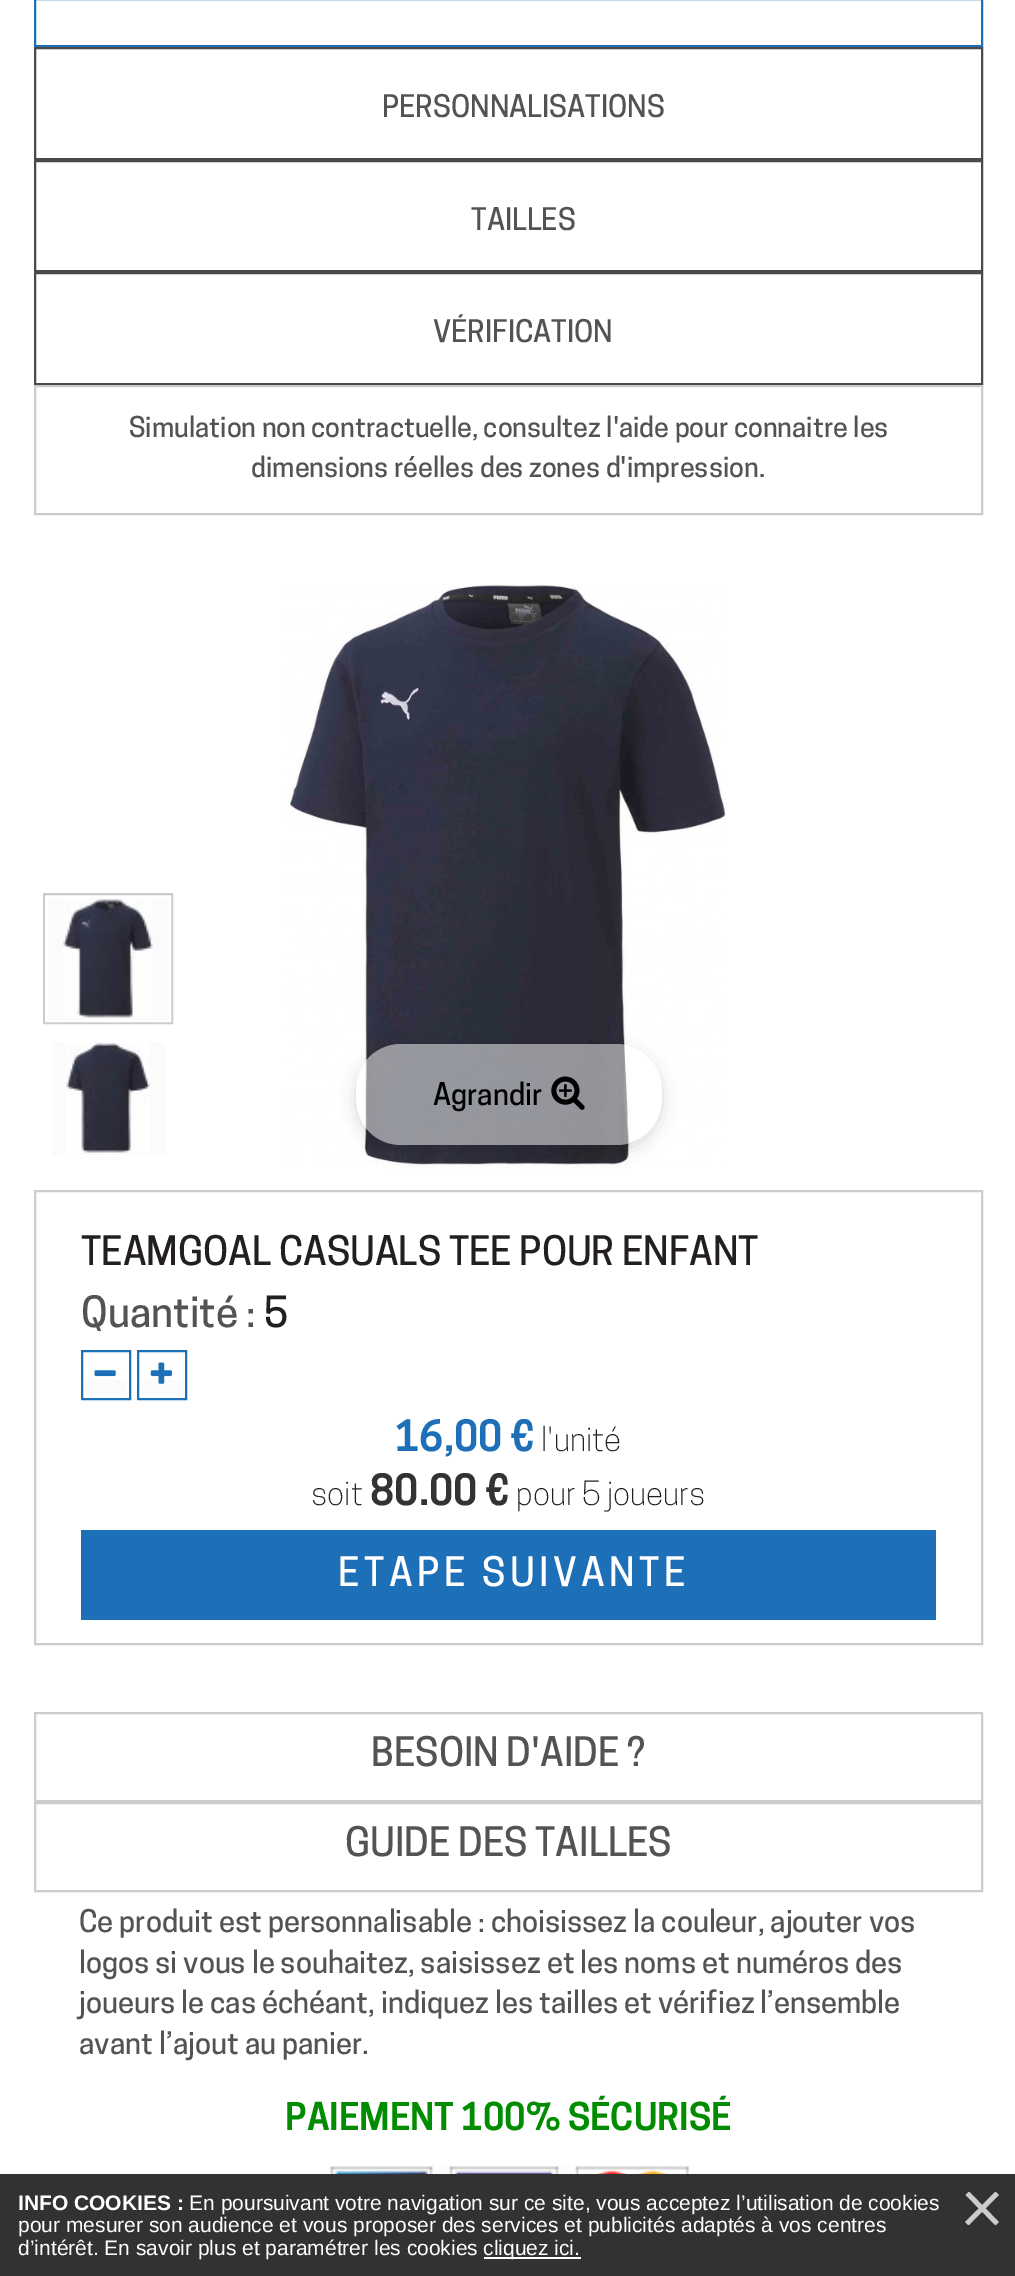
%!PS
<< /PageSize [1015 2276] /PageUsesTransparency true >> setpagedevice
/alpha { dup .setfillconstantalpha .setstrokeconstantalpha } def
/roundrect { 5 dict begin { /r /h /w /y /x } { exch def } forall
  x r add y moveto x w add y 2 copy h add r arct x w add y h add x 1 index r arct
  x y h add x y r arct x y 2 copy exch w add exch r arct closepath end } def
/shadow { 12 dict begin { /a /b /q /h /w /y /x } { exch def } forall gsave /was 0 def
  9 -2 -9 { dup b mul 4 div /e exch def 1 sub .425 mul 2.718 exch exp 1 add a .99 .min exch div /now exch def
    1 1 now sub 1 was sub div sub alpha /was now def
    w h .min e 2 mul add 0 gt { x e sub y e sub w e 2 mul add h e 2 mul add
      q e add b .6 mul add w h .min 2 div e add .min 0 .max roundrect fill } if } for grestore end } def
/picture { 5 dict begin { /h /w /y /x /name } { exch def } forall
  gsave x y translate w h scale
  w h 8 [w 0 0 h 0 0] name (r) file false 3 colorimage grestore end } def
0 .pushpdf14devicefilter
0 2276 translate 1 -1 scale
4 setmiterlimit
1 setgray
0 0 1015 2276 rectfill
0.114 0.439 0.722 setrgbcolor
2 setlinewidth
35 -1 947 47 rectstroke
0.302 0.286 0.282 setrgbcolor
35 48 947 111 rectstroke
/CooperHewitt-Medium [29.25 0 0 -29.25 0 0] selectfont
0.325 setgray
382 117 moveto (PERSONNALISATIONS) show
0.302 0.286 0.282 setrgbcolor
35 161 947 110 rectstroke
0.325 setgray
471 230 moveto (TAILLES) show
0.302 0.286 0.282 setrgbcolor
35 273 947 111 rectstroke
0.325 setgray
433 342 moveto (VÉRIFICATION) show
0.8 setgray
35 386 947 128 rectstroke
/CooperHewitt-Medium [27 0 0 -27 0 0] selectfont
0.325 setgray
129 437 moveto (Simulation non contractuelle, consultez l'aide pour connaitre les) show
251 477 moveto (dimensions réelles des zones d'impression.) show
0.984 setgray
45 895 126 125 rectfill
0.8 setgray
44 894 128 129 rectstroke
1 setgray
46 897 124 124 rectstroke
(img1.rgb) 63 898 90 120 picture
0.984 setgray
52 1042 113 113 rectfill
(img2.rgb) 66 1042 84 112 picture
(img3.rgb) 287 584 440 584 picture
gsave
newpath 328 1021 moveto 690 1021 lineto 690 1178 lineto 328 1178 lineto closepath 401 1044 moveto 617 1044 lineto 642 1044 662 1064 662 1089 curveto 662 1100 lineto 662 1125 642 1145 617 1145 curveto 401 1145 lineto 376 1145 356 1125 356 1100 curveto 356 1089 lineto 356 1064 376 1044 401 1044 curveto closepath eoclip newpath
0 setgray
356 1049 306 101 45 9 0.16 shadow
grestore
0.5 alpha
1 setgray
356 1044 306 101 45 roundrect fill
/CooperHewitt-Medium [29.25 0 0 -29.25 0 0] selectfont
1 alpha
0 setgray
433 1105 moveto (Agrandir) show
(img4.rgb) 551 1076 34 34 picture
0.8 setgray
35 1191 947 453 rectstroke
/CooperHewitt-Medium [38.25 0 0 -38.25 0 0] selectfont
0.137 0.122 0.125 setrgbcolor
81 1265 moveto (TEAMGOAL CASUALS TEE POUR ENFANT) show
/CooperHewitt-Medium [40.5 0 0 -40.5 0 0] selectfont
0.325 setgray
81 1327 moveto (Quantité :) show
0.137 0.122 0.125 setrgbcolor
264 1327 moveto (5) show
0.114 0.439 0.722 setrgbcolor
82 1351 48 48 rectstroke
gsave newpath 85 1380 moveto 126 1380 lineto 126 1395 lineto 85 1395 lineto closepath clip newpath
<< /ShadingType 2 /ColorSpace /DeviceRGB /Coords [106 1355 106 1395] /Extend [true true] /Function << /FunctionType 2 /Domain [0 1] /C0 [1 1 1] /C1 [0.984 0.984 0.984] /N 1 >> >> shfill grestore
(img5.rgb) 94 1370 22 7 picture
138 1351 48 48 rectstroke
gsave newpath 142 1380 moveto 183 1380 lineto 183 1395 lineto 142 1395 lineto closepath clip newpath
<< /ShadingType 2 /ColorSpace /DeviceRGB /Coords [162 1355 162 1395] /Extend [true true] /Function << /FunctionType 2 /Domain [0 1] /C0 [1 1 1] /C1 [0.984 0.984 0.984] /N 1 >> >> shfill grestore
(img6.rgb) 150 1362 22 22 picture
/CooperHewitt-SemiBold [40.5 0 0 -40.5 0 0] selectfont
395 1451 moveto (16,00 €) show
/CooperHewitt-Light [31.5 0 0 -31.5 0 0] selectfont
0.137 0.122 0.125 setrgbcolor
541 1451 moveto (l'unité) show
311 1505 moveto (soit) show
/CooperHewitt-SemiBold [40.5 0 0 -40.5 0 0] selectfont
0.2 setgray
370 1505 moveto (80.00 €) show
/CooperHewitt-Light [31.5 0 0 -31.5 0 0] selectfont
0.137 0.122 0.125 setrgbcolor
516 1505 moveto (pour 5 joueurs) show
0.114 0.439 0.722 setrgbcolor
81 1530 855 90 rectfill
/CooperHewitt-Medium [38.25 0 0 -38.25 0 0] selectfont
1 setgray
338 1586 moveto 4.5 0 (ETAPE SUIVANTE) ashow
0.8 setgray
35 1713 947 88 rectstroke
0.325 setgray
371 1766 moveto (BESOIN D'AIDE ?) show
0.8 setgray
35 1803 947 88 rectstroke
0.325 setgray
345 1856 moveto (GUIDE DES TAILLES) show
/CooperHewitt-Medium [29.25 0 0 -29.25 0 0] selectfont
79 1932 moveto (Ce produit est personnalisable : choisissez la couleur, ajouter vos) show
79 1973 moveto (logos si vous le souhaitez, saisissez et les noms et numéros des) show
79 2013 moveto (joueurs le cas échéant, indiquez les tailles et vérifiez l’ensemble) show
79 2054 moveto (avant l’ajout au panier.) show
/CooperHewitt-SemiBold [36 0 0 -36 0 0] selectfont
0.008 0.549 0.008 setrgbcolor
285 2130 moveto (PAIEMENT 100% SÉCURISÉ) show
(img7.rgb) 328 2164 362 10 picture
0.196 setgray
0 2174 1015 102 rectfill
/LiberationSans-Bold [21 0 0 -21 0 0] selectfont
1 setgray
18 2210 moveto (INFO COOKIES :) show
/LiberationSans-Regular [21 0 0 -21 0 0] selectfont
189 2210 moveto (En poursuivant votre navigation sur ce site, vous acceptez l’utilisation de cookies) show
18 2232 moveto (pour mesurer son audience et vous proposer des services et publicités adaptés à vos centres) show
18 2255 moveto (d’intérêt. En savoir plus et paramétrer les cookies) show
484 2257 97 2 rectfill
483 2255 moveto (cliquez ici.) show
gsave
965 2192 34 33 rectclip
0.8 setgray
4.8 setlinewidth
2 setlinecap
newpath 969 2195 moveto 995.5 2222 lineto 995.5 2195 moveto 968.5 2222 lineto stroke
grestore
.poppdf14devicefilter showpage
